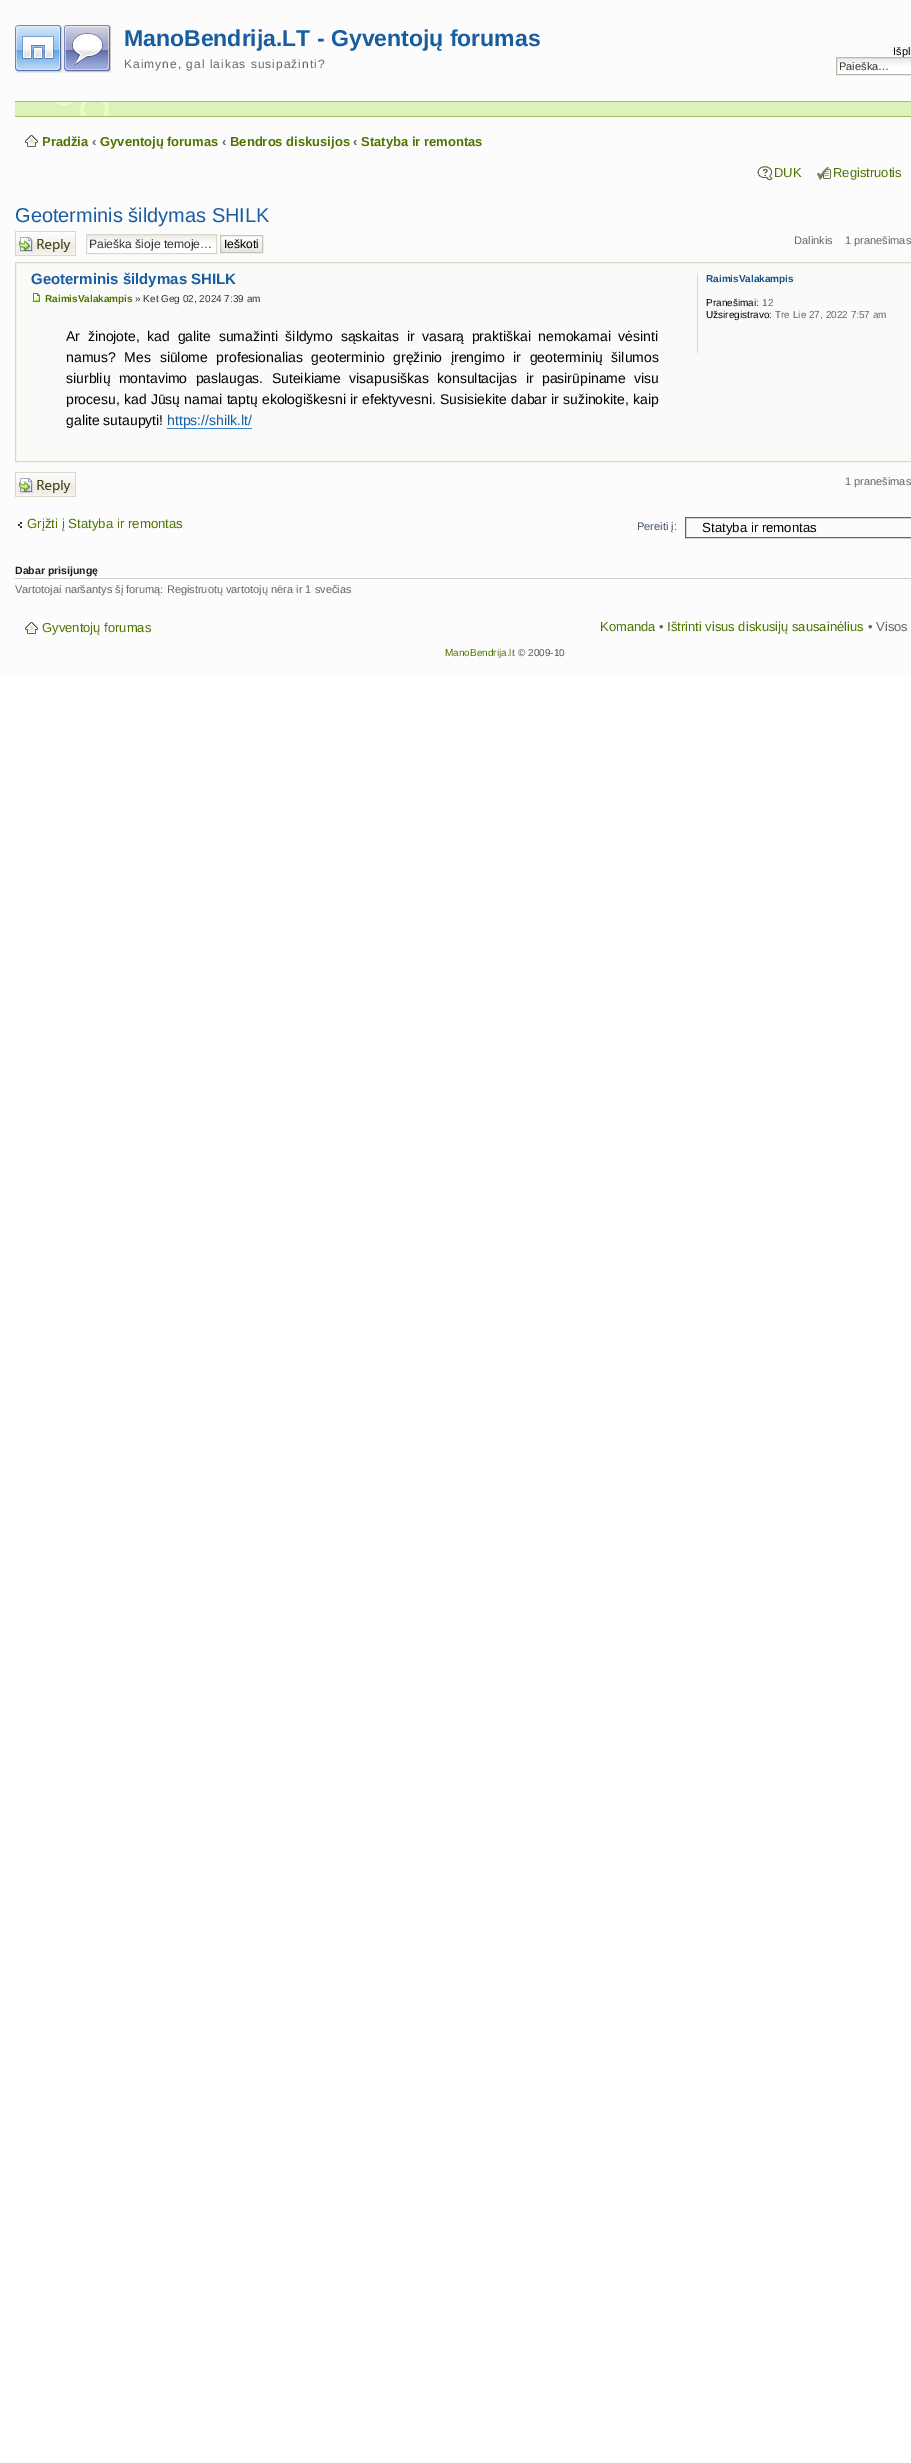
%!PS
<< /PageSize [911 2463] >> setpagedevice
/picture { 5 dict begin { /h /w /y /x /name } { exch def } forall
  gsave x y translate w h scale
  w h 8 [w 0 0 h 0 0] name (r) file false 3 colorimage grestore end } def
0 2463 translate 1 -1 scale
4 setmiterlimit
1 setgray
0 0 911 2463 rectfill
0.988 setgray
0 0 911 674 rectfill
(img1.rgb) 15 25 96 48 picture
/LiberationSans-Bold [23 0 0 -23 0 0] selectfont
0.094 0.365 0.627 setrgbcolor
124 46 moveto (ManoBendrija.LT - Gyventojų forumas) show
/LiberationSans-Regular [12 0 0 -12 0 0] selectfont
0.4 setgray
124 68 moveto 1 0 (Kaimyne, gal laikas susipažinti?) ashow
/LiberationSans-Regular [11 0 0 -11 0 0] selectfont
0 setgray
893 55 moveto (Išpl) show
1 setgray
837 66 74 8 rectfill
(img2.rgb) 837 58 74 8 picture
0.729 0.718 0.671 setrgbcolor
836.5 57.5 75 17 rectstroke
0.2 setgray
839 70 moveto (Paieška…) show
0.863 0.949 0.722 setrgbcolor
15 102 896 14 rectfill
(img3.rgb) 56 102 53 14 picture
0.62 0.753 0.408 setrgbcolor
15 101 896 1 rectfill
15 116 896 1 rectfill
(img4.rgb) 25 135 13 12 picture
/LiberationSans-Bold [13 0 0 -13 0 0] selectfont
0.31 0.459 0 setrgbcolor
42 146 moveto (Pradžia) show
0.4 setgray
92 146 moveto (‹) show
0.31 0.459 0 setrgbcolor
100 146 moveto (Gyventojų forumas) show
0.4 setgray
222 146 moveto (‹) show
0.31 0.459 0 setrgbcolor
230 146 moveto (Bendros diskusijos) show
0.4 setgray
353 146 moveto (‹) show
0.31 0.459 0 setrgbcolor
361 146 moveto (Statyba ir remontas) show
(img5.rgb) 757 166 16 14 picture
/LiberationSans-Regular [13 0 0 -13 0 0] selectfont
774 177 moveto (DUK) show
(img6.rgb) 817 167 14 13 picture
833 177 moveto (Registruotis) show
/LiberationSans-Regular [20 0 0 -20 0 0] selectfont
0.094 0.365 0.627 setrgbcolor
15 222 moveto (Geoterminis šildymas SHILK) show
(img7.rgb) 15 231 61 25 picture
1 setgray
87 243 129 10 rectfill
(img8.rgb) 87 235 129 8 picture
0.855 0.843 0.796 setrgbcolor
86.5 234.5 130 19 rectstroke
/LiberationSans-Regular [12.1 0 0 -12.1 0 0] selectfont
0.2 setgray
89 248 moveto (Paieška šioje temoje…) show
(img9.rgb) 221 240 41 12 picture
0.784 0.769 0.733 setrgbcolor
220.5 235.5 42 17 rectstroke
0 setgray
224 248 moveto (Ieškoti) show
/LiberationSans-Regular [11 0 0 -11 0 0] selectfont
0.4 setgray
794 244 moveto (Dalinkis) show
845 244 moveto (1 pranešimas) show
0.98 0.98 0.973 setrgbcolor
newpath 15.5 262.5 moveto 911.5 262.5 lineto 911.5 461.5 lineto 15.5 461.5 lineto closepath gsave fill grestore
0.855 0.843 0.796 setrgbcolor
stroke
/LiberationSans-Bold [15 0 0 -15 0 0] selectfont
0.094 0.365 0.627 setrgbcolor
31 284 moveto (Geoterminis šildymas SHILK) show
(img10.rgb) 33 293 7 9 picture
/LiberationSans-Bold [10 0 0 -10 0 0] selectfont
0.31 0.459 0 setrgbcolor
45 302 moveto (RaimisValakampis) show
/LiberationSans-Regular [10 0 0 -10 0 0] selectfont
0.2 setgray
135 302 moveto (» Ket Geg 02, 2024 7:39 am) show
/LiberationSans-Regular [14 0 0 -14 0 0] selectfont
0 setgray
66 341 moveto 3.75 0 32 (Ar žinojote, kad galite sumažinti šildymo sąskaitas ir vasarą praktiškai nemokamai vėsinti) widthshow
66 362 moveto 4.75 0 32 (namus? Mes siūlome profesionalias geoterminio gręžinio įrengimo ir geoterminių šilumos) widthshow
66 383 moveto 4.5 0 32 (siurblių montavimo paslaugas. Suteikiame visapusiškas konsultacijas ir pasirūpiname visu) widthshow
66 404 moveto 0.25 0 32 (procesu, kad Jūsų namai taptų ekologiškesni ir efektyvesni. Susisiekite dabar ir sužinokite, kaip) widthshow
66 425 moveto (galite sutaupyti!) show
0.094 0.365 0.627 setrgbcolor
167 425 moveto (https://shilk.lt/) show
0.212 0.541 0.824 setrgbcolor
167 428 85 1 rectfill
0.855 0.843 0.796 setrgbcolor
697 273 1 80 rectfill
/LiberationSans-Bold [10 0 0 -10 0 0] selectfont
0.063 0.322 0.537 setrgbcolor
706 282 moveto (RaimisValakampis) show
/LiberationSans-Regular [10 0 0 -10 0 0] selectfont
0 setgray
706 306 moveto (Pranešimai:) show
0.4 setgray
762 306 moveto (12) show
0 setgray
706 318 moveto (Užsiregistravo:) show
0.4 setgray
775 318 moveto (Tre Lie 27, 2022 7:57 am) show
(img7.rgb) 15 472 61 25 picture
/LiberationSans-Regular [11 0 0 -11 0 0] selectfont
845 485 moveto (1 pranešimas) show
(img11.rgb) 18 522 4 6 picture
/LiberationSans-Regular [13.25 0 0 -13.25 0 0] selectfont
0.31 0.459 0 setrgbcolor
27 528 moveto (Grįžti į Statyba ir remontas) show
/LiberationSans-Regular [11 0 0 -11 0 0] selectfont
0.259 0.314 0.404 setrgbcolor
637 530 moveto (Pereiti į:) show
0.4 setgray
685.5 517.5 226 20 rectstroke
/LiberationSans-Regular [13.25 0 0 -13.25 0 0] selectfont
0 setgray
702 532 moveto (Statyba ir remontas) show
0.8 setgray
15 578 896 1 rectfill
/LiberationSans-Bold [10.5 0 0 -10.5 0 0] selectfont
0.122 setgray
15 574 moveto (Dabar prisijungę) show
/LiberationSans-Regular [11 0 0 -11 0 0] selectfont
0.4 setgray
15 593 moveto (Vartotojai naršantys šį forumą: Registruotų vartotojų nėra ir 1 svečias) show
(img4.rgb) 25 622 13 12 picture
/LiberationSans-Regular [13 0 0 -13 0 0] selectfont
0.31 0.459 0 setrgbcolor
42 632 moveto (Gyventojų forumas) show
600 631 moveto (Komanda) show
0.4 setgray
659 631 moveto (•) show
0.31 0.459 0 setrgbcolor
667 631 moveto (Ištrinti visus diskusijų sausainėlius) show
0.4 setgray
868 631 moveto (• Visos) show
/LiberationSans-Regular [10 0 0 -10 0 0] selectfont
0.31 0.459 0 setrgbcolor
445 656 moveto (ManoBendrija.lt) show
0.333 setgray
518 656 moveto (© 2009-10) show
showpage
